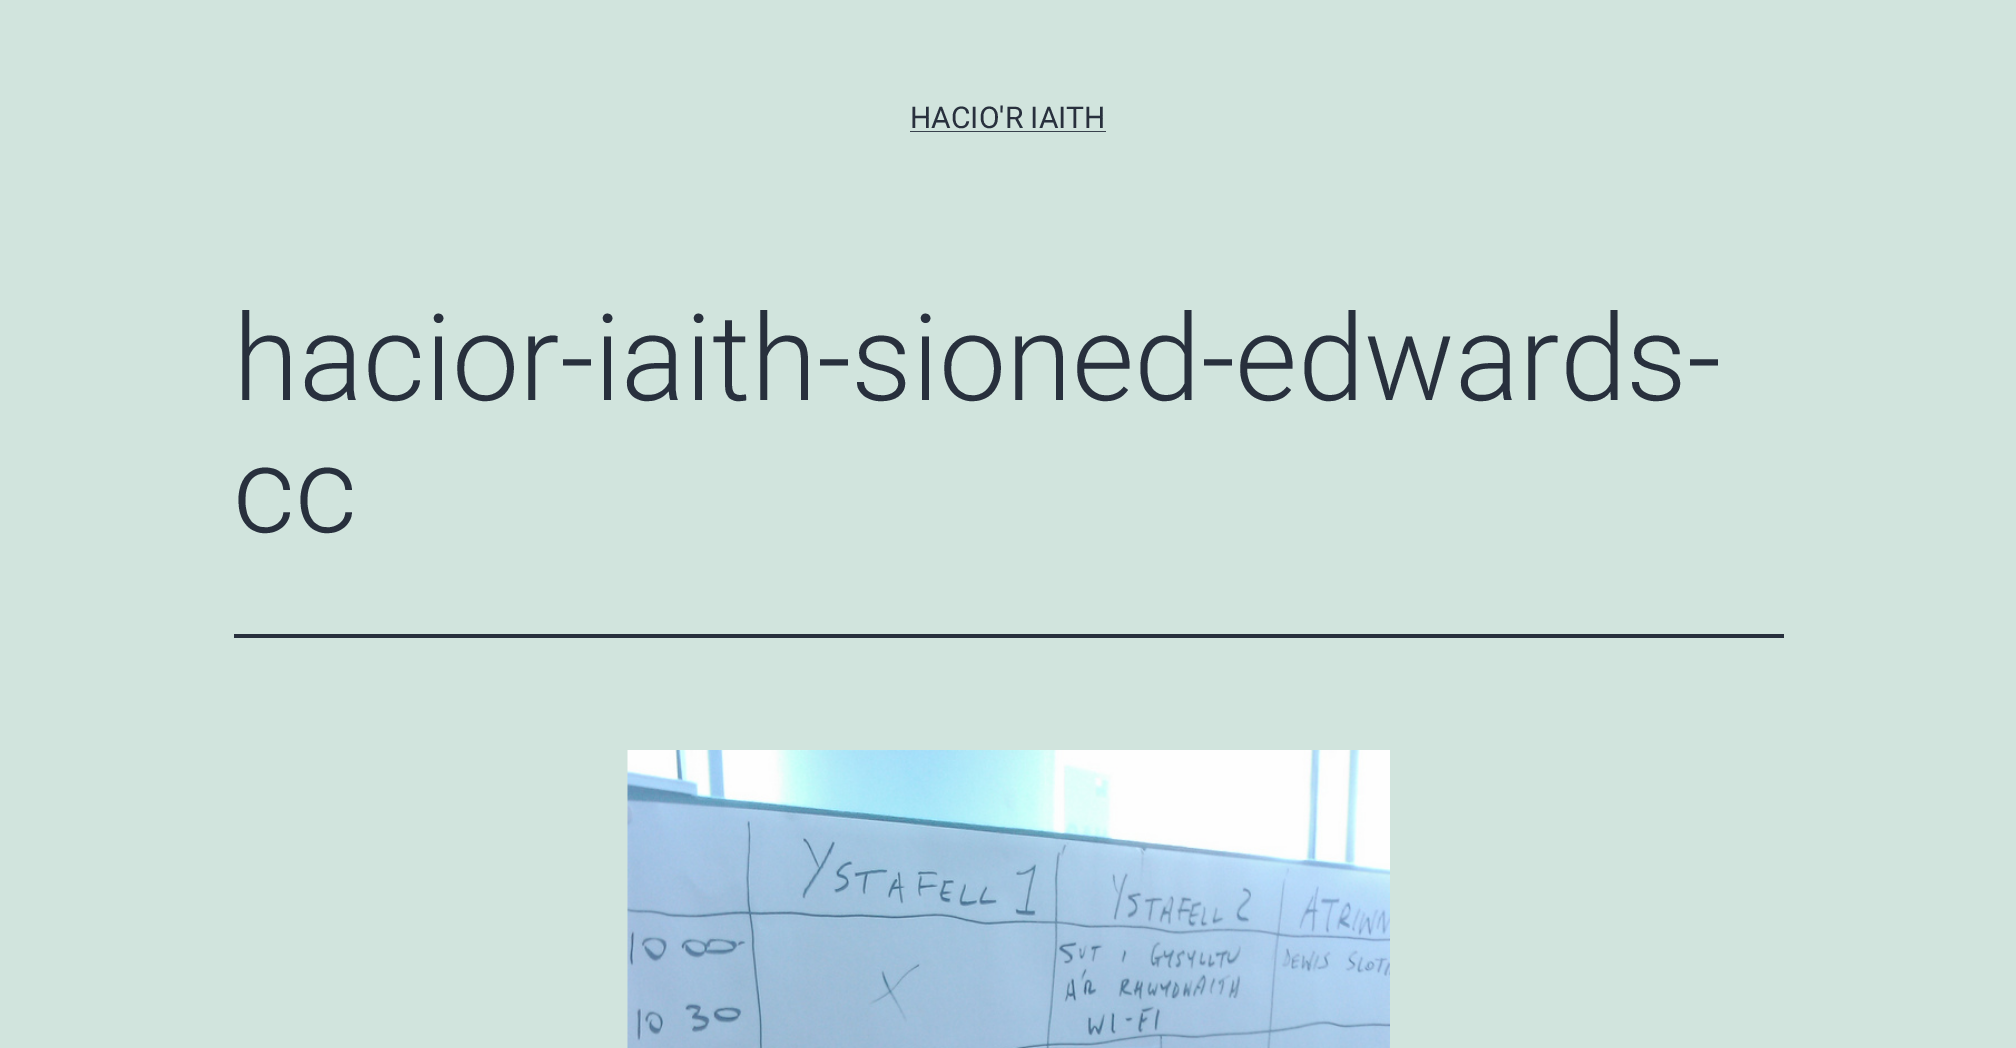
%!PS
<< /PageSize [2016 1048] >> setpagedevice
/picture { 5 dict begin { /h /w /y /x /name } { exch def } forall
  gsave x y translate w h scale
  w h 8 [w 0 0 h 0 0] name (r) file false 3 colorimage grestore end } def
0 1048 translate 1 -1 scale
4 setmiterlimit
0.82 0.894 0.867 setrgbcolor
0 0 2016 1048 rectfill
/Roboto-Regular [30 0 0 -30 0 0] selectfont
0.157 0.188 0.239 setrgbcolor
910 128 moveto (HACIO'R IAITH) show
0.224 0.255 0.302 setrgbcolor
910 131 196 1 rectfill
0.157 0.188 0.239 setrgbcolor
234 634 1550 4 rectfill
/Roboto-Light [120 0 0 -120 0 0] selectfont
233 400 moveto (hacior-iaith-sioned-edwards-) show
233 532 moveto (cc) show
(img1.rgb) 627 750 763 298 picture
showpage
